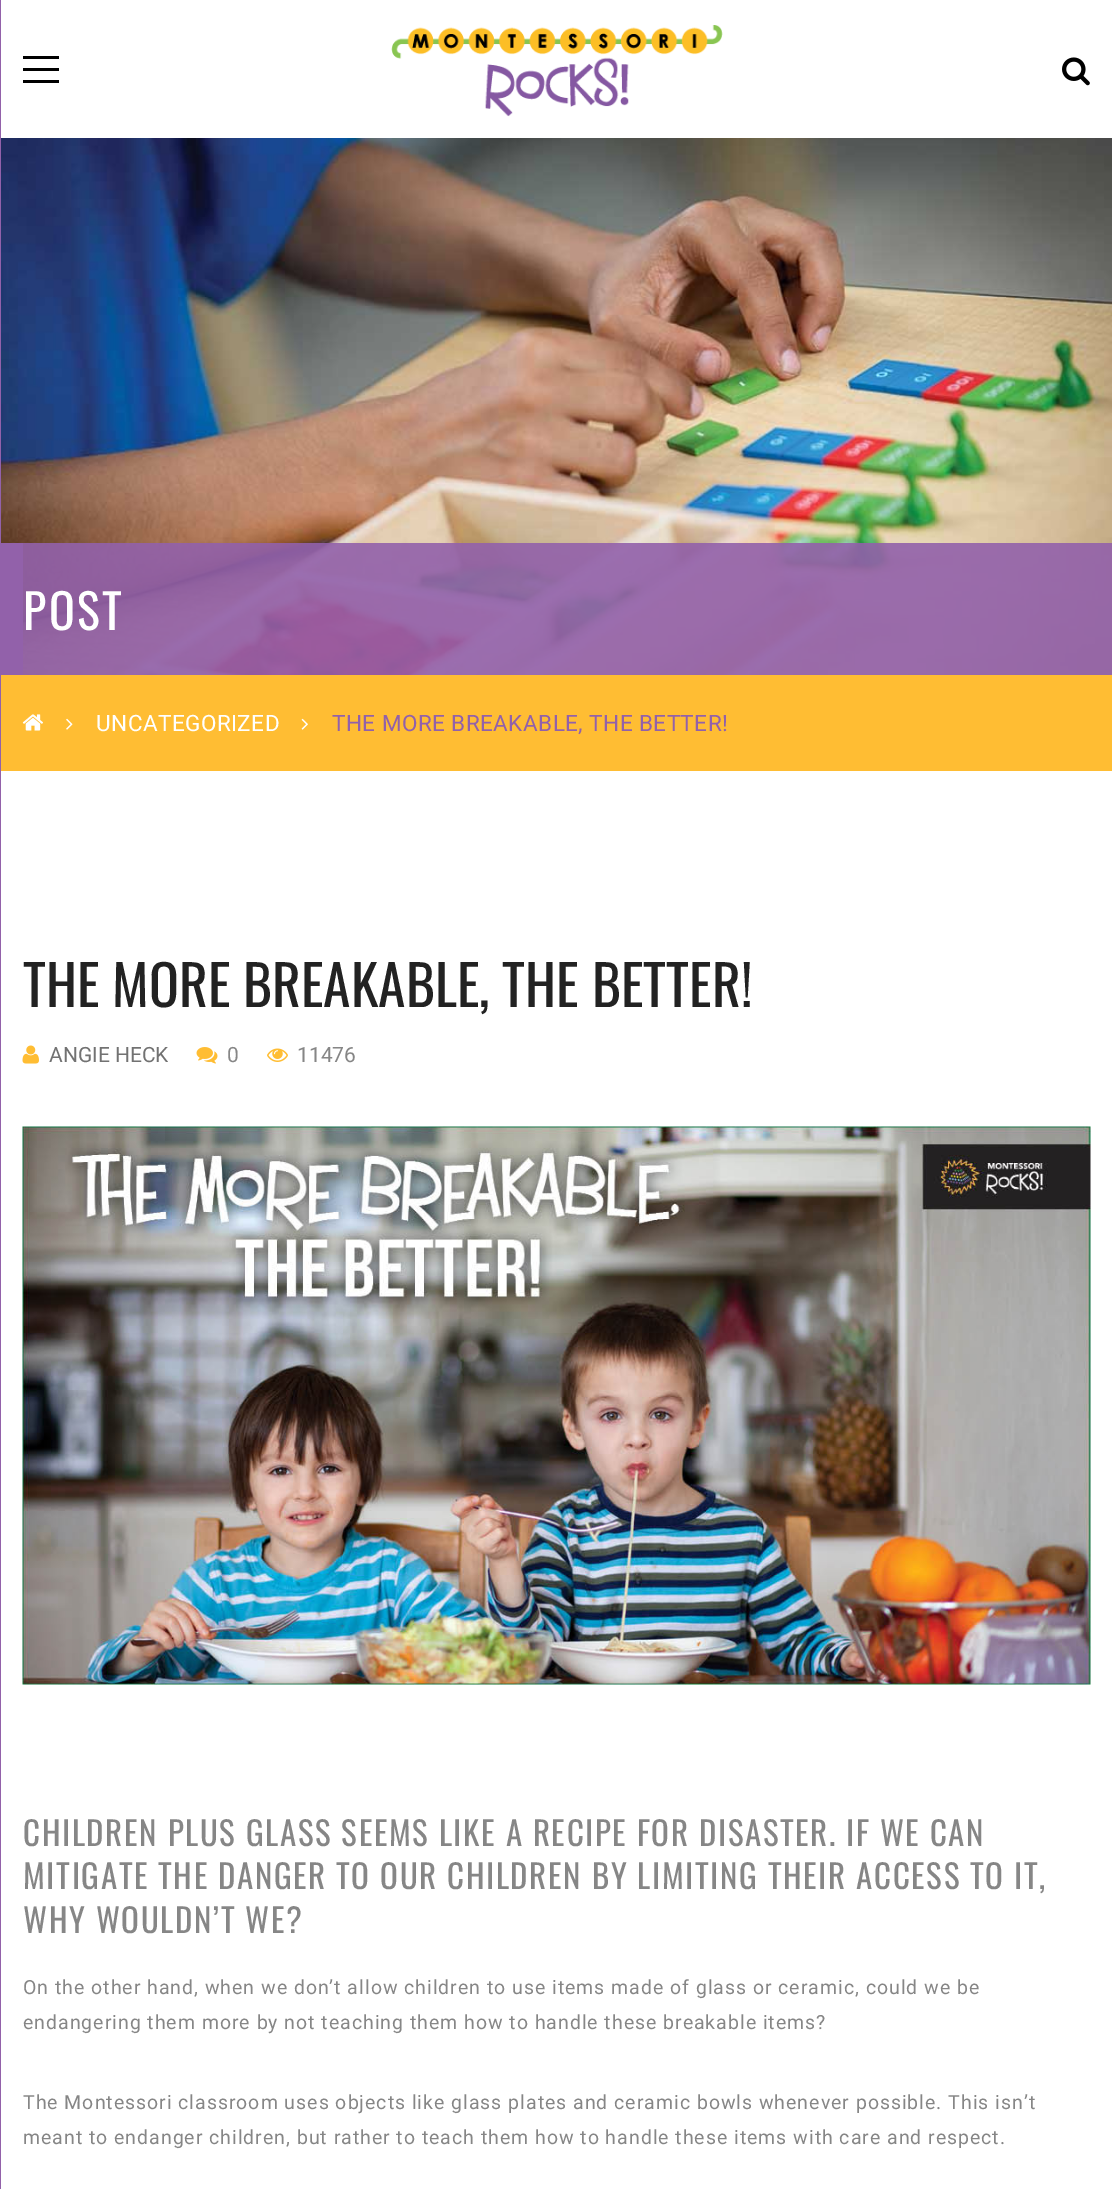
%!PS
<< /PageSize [1112 2189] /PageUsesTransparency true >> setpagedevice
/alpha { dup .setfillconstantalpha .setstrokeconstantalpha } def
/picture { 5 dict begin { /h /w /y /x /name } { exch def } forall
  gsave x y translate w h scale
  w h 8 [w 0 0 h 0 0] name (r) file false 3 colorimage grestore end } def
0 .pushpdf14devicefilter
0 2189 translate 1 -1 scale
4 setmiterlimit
1 setgray
0 0 1112 2189 rectfill
0.573 0.38 0.667 setrgbcolor
0 0 1 2189 rectfill
0 setgray
23 56 36 3 rectfill
23 68 36 3 rectfill
23 80 36 3 rectfill
(img1.rgb) 391 25 332 92 picture
(img2.rgb) 1062 57 28 29 picture
(img3.rgb) 1 138 1111 537 picture
0.9 alpha
0.573 0.38 0.667 setrgbcolor
23 543 1068 132 rectfill
1 alpha
1 543 22 132 rectfill
/Oswald-Regular [48 0 0 -48 0 0] selectfont
1 setgray
23 630 moveto 2.5 0 (POST) ashow
0.9 alpha
0.573 0.38 0.667 setrgbcolor
1091 543 21 132 rectfill
1 alpha
1 0.741 0.2 setrgbcolor
1 675 1111 96 rectfill
(img4.rgb) 22 714 21 17 picture
(img5.rgb) 66 718 7 12 picture
/Roboto-Regular [22.5 0 0 -22.5 0 0] selectfont
1 setgray
96 731 moveto 0.45 0 (UNCATEGORIZED) ashow
(img6.rgb) 301 718 7 12 picture
0.573 0.38 0.667 setrgbcolor
332 731 moveto 0.45 0 (THE MORE BREAKABLE, THE BETTER!) ashow
/Oswald-Regular [55.5 0 0 -55.5 0 0] selectfont
0.133 setgray
23 1007 moveto (THE MORE BREAKABLE, THE BETTER!) show
(img7.rgb) 22 1045 17 19 picture
/Roboto-Regular [21 0 0 -21 0 0] selectfont
0.447 setgray
49 1062 moveto (ANGIE HECK) show
(img8.rgb) 196 1047 22 17 picture
0.525 setgray
227 1062 moveto (0) show
(img9.rgb) 267 1048 21 14 picture
297 1062 moveto (11476) show
(img10.rgb) 22 1126 1069 559 picture
/Oswald-Regular [33 0 0 -33 0 0] selectfont
23 1846 moveto 1.65 0 (CHILDREN PLUS GLASS SEEMS LIKE A RECIPE FOR DISASTER. IF WE CAN) ashow
23 1889 moveto 1.65 0 (MITIGATE THE DANGER TO OUR CHILDREN BY LIMITING THEIR ACCESS TO IT,) ashow
23 1933 moveto 1.65 0 (WHY WOULDN’T WE?) ashow
/Roboto-Regular [19.5 0 0 -19.5 0 0] selectfont
23 1994 moveto 0.98 0 (On the other hand, when we don’t allow children to use items made of glass or ceramic, could we be) ashow
23 2029 moveto 0.98 0 (endangering them more by not teaching them how to handle these breakable items?) ashow
23 2109 moveto 0.98 0 (The Montessori classroom uses objects like glass plates and ceramic bowls whenever possible. This isn’t) ashow
23 2144 moveto 0.98 0 (meant to endanger children, but rather to teach them how to handle these items with care and respect.) ashow
.poppdf14devicefilter showpage
